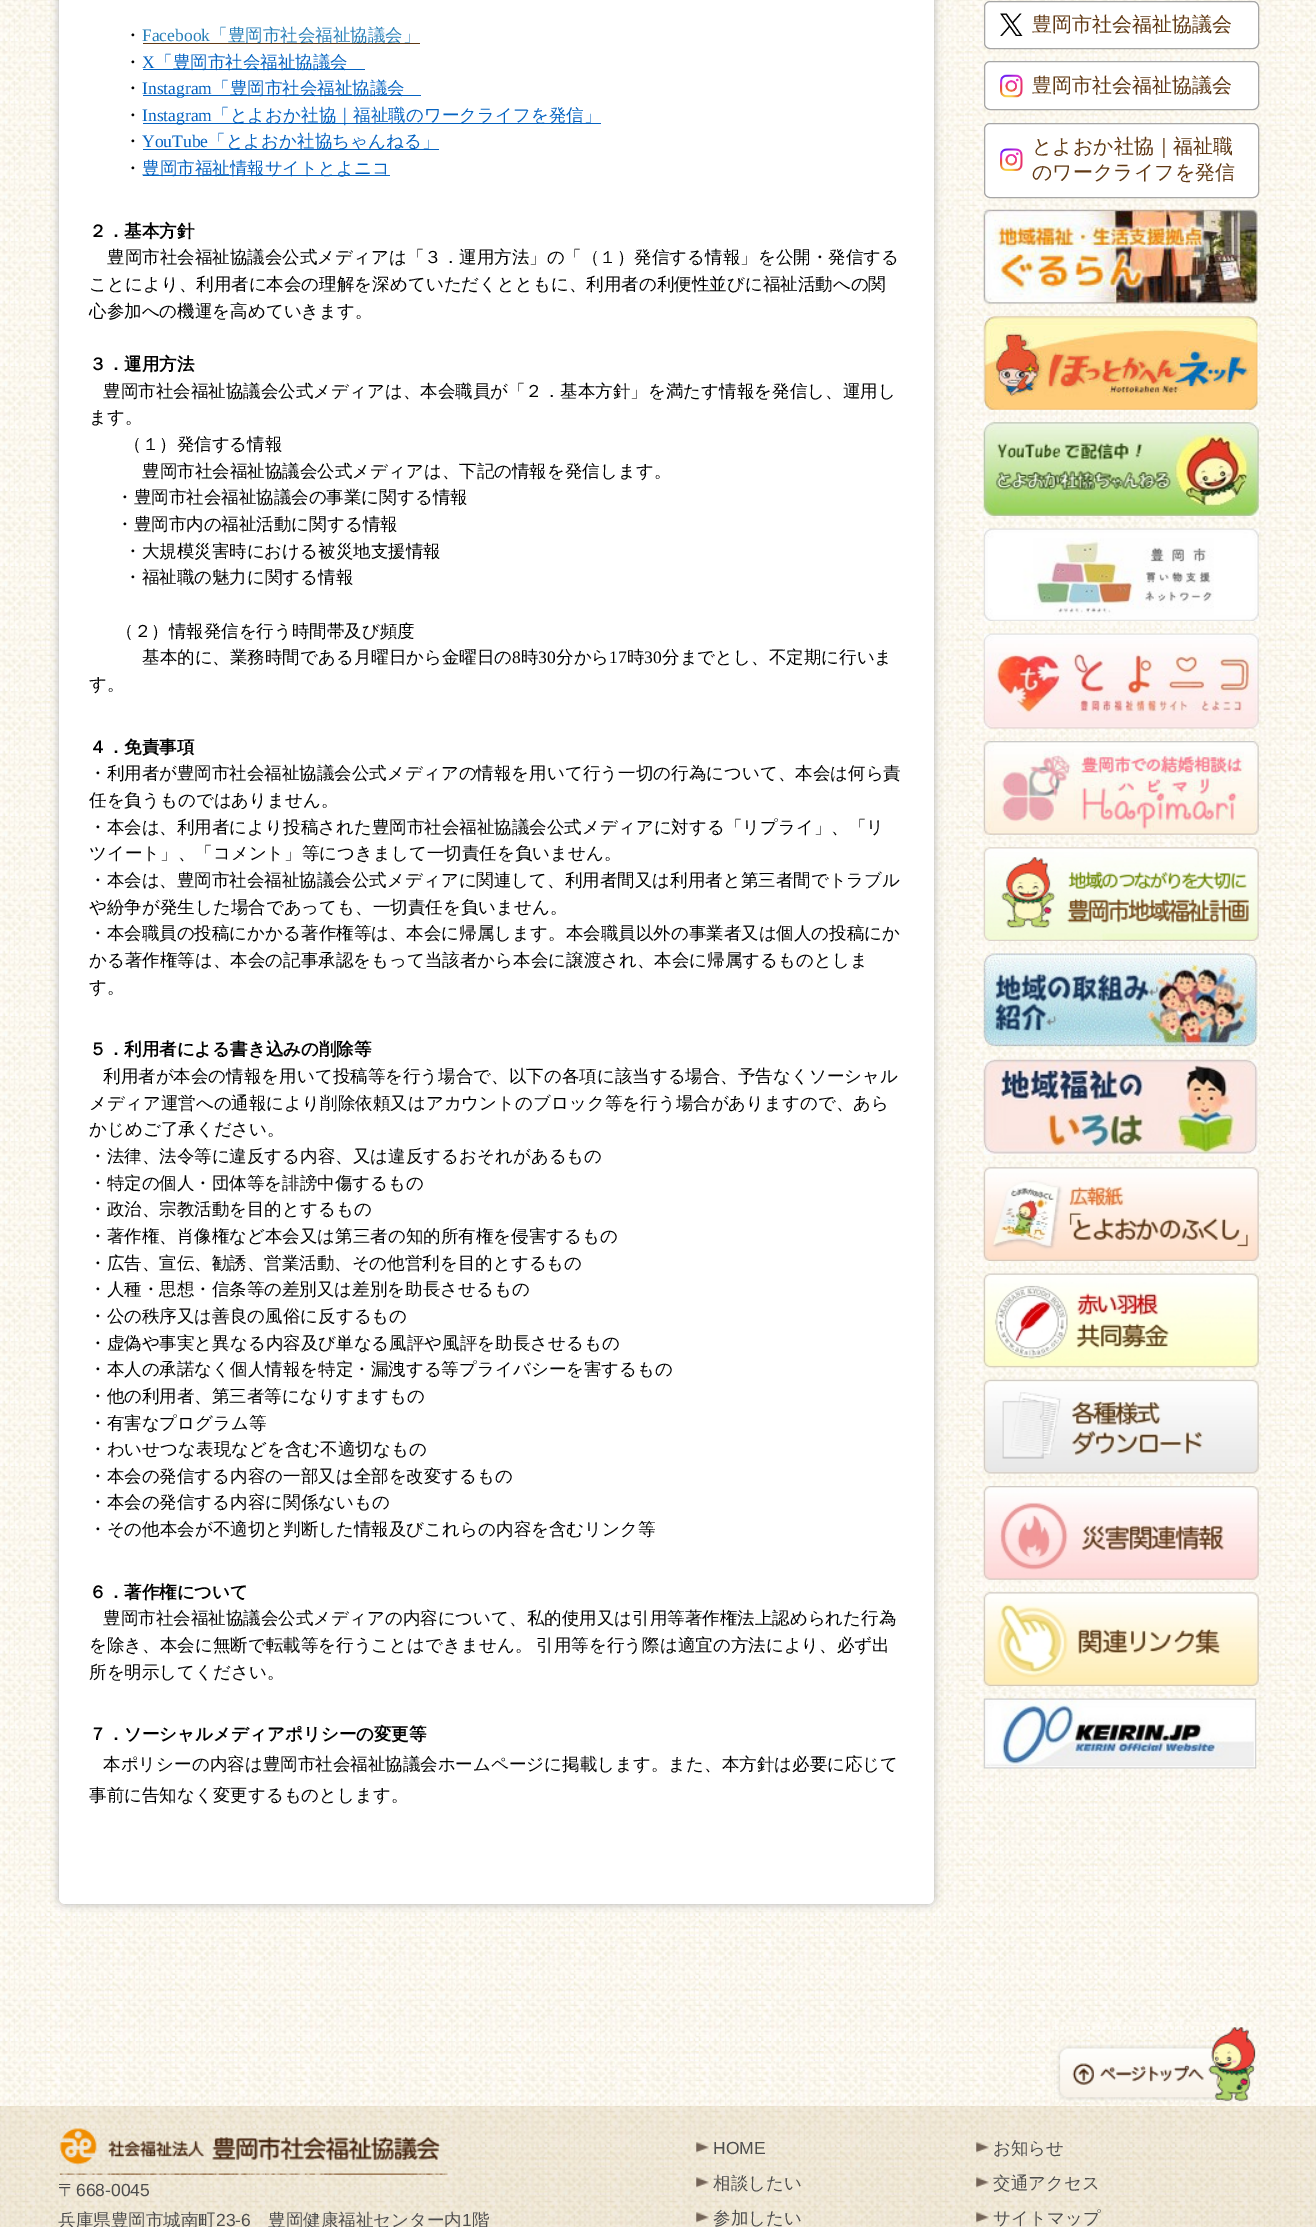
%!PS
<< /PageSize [1316 2227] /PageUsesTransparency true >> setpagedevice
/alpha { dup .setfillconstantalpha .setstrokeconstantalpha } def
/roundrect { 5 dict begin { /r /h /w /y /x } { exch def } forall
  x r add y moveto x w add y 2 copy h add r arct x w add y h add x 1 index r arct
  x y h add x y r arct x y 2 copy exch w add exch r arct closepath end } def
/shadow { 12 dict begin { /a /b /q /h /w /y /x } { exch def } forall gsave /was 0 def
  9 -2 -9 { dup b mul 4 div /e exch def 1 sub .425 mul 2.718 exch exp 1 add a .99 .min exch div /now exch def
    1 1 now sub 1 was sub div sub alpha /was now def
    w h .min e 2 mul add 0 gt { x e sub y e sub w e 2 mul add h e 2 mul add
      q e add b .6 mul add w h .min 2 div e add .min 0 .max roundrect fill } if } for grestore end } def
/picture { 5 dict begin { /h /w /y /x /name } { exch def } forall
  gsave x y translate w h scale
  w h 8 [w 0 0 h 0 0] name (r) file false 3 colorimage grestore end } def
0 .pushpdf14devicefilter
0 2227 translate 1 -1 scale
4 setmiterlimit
1 setgray
0 0 1316 2227 rectfill
(img1.rgb) 0 0 1316 2106 picture
0.702 setgray
59 -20 875 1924 6 4.5 1 shadow
1 setgray
59 -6 875 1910 6 roundrect fill
/WenQuanYiZenHei-Medium [17.5 0 0 -17.5 0 0] selectfont
0 setgray
124 41 moveto (・) show
/LiberationSerif-Regular [17.5 0 0 -17.5 0 0] selectfont
0.161 0.502 0.725 setrgbcolor
142 41 moveto (Facebook) show
0.376 0.22 0.075 setrgbcolor
143 43 277 1 rectfill
/WenQuanYiZenHei-Medium [17.5 0 0 -17.5 0 0] selectfont
0.161 0.502 0.725 setrgbcolor
210 41 moveto (「豊岡市社会福祉協議会」) show
0 setgray
124 68 moveto (・) show
/LiberationSerif-Regular [17.5 0 0 -17.5 0 0] selectfont
0.02 0.388 0.757 setrgbcolor
142 68 moveto (X) show
143 69 222 1 rectfill
/WenQuanYiZenHei-Medium [17.5 0 0 -17.5 0 0] selectfont
155 68 moveto (「豊岡市社会福祉協議会) show
0 setgray
124 94 moveto (・) show
0.02 0.388 0.757 setrgbcolor
143 95 68 1 rectfill
/LiberationSerif-Regular [17.5 0 0 -17.5 0 0] selectfont
142 94 moveto (Instagram) show
211 95 210 1 rectfill
/WenQuanYiZenHei-Medium [17.5 0 0 -17.5 0 0] selectfont
212 94 moveto (「豊岡市社会福祉協議会) show
0 setgray
124 121 moveto (・) show
0.02 0.388 0.757 setrgbcolor
143 123 68 1 rectfill
/LiberationSerif-Regular [17.5 0 0 -17.5 0 0] selectfont
142 121 moveto (Instagram) show
211 123 390 1 rectfill
/WenQuanYiZenHei-Medium [17.5 0 0 -17.5 0 0] selectfont
212 121 moveto (「とよおか社協｜福祉職のワークライフを発信」) show
0 setgray
124 147 moveto (・) show
/LiberationSerif-Regular [17.5 0 0 -17.5 0 0] selectfont
0.02 0.388 0.757 setrgbcolor
142 147 moveto (YouTube) show
143 149 296 1 rectfill
/WenQuanYiZenHei-Medium [17.5 0 0 -17.5 0 0] selectfont
208 147 moveto (「とよおか社協ちゃんねる」) show
0 setgray
124 174 moveto (・) show
0.02 0.388 0.757 setrgbcolor
143 175 247 1 rectfill
142 174 moveto (豊岡市福祉情報サイトとよニコ) show
/WenQuanYiZenHei-Bold [17.5 0 0 -17.5 0 0] selectfont
0 setgray
89 237 moveto (２．基本方針) show
/WenQuanYiZenHei-Medium [17.5 0 0 -17.5 0 0] selectfont
107 263 moveto (豊岡市社会福祉協議会公式メディアは「３．運用方法」の「（１）発信する情報」を公開・発信する) show
89 290 moveto (ことにより、利用者に本会の理解を深めていただくとともに、利用者の利便性並びに福祉活動への関) show
89 317 moveto (心参加への機運を高めていきます。) show
/WenQuanYiZenHei-Bold [17.5 0 0 -17.5 0 0] selectfont
89 370 moveto (３．運用方法) show
/WenQuanYiZenHei-Medium [17.5 0 0 -17.5 0 0] selectfont
103 397 moveto (豊岡市社会福祉協議会公式メディアは、本会職員が「２．基本方針」を満たす情報を発信し、運用し) show
89 423 moveto (ます。) show
124 450 moveto (（１）発信する情報) show
142 477 moveto (豊岡市社会福祉協議会公式メディアは、下記の情報を発信します。) show
116 503 moveto (・豊岡市社会福祉協議会の事業に関する情報) show
116 530 moveto (・豊岡市内の福祉活動に関する情報) show
124 557 moveto (・大規模災害時における被災地支援情報) show
124 583 moveto (・福祉職の魅力に関する情報) show
116 637 moveto (（２）情報発信を行う時間帯及び頻度) show
142 663 moveto (基本的に、業務時間である月曜日から金曜日の) show
/LiberationSerif-Regular [17.5 0 0 -17.5 0 0] selectfont
512 663 moveto (8) show
/WenQuanYiZenHei-Medium [17.5 0 0 -17.5 0 0] selectfont
521 663 moveto (時) show
/LiberationSerif-Regular [17.5 0 0 -17.5 0 0] selectfont
538 663 moveto (30) show
/WenQuanYiZenHei-Medium [17.5 0 0 -17.5 0 0] selectfont
556 663 moveto (分から) show
/LiberationSerif-Regular [17.5 0 0 -17.5 0 0] selectfont
609 663 moveto (17) show
/WenQuanYiZenHei-Medium [17.5 0 0 -17.5 0 0] selectfont
627 663 moveto (時) show
/LiberationSerif-Regular [17.5 0 0 -17.5 0 0] selectfont
644 663 moveto (30) show
/WenQuanYiZenHei-Medium [17.5 0 0 -17.5 0 0] selectfont
662 663 moveto (分までとし、不定期に行いま) show
89 690 moveto (す。) show
/WenQuanYiZenHei-Bold [17.5 0 0 -17.5 0 0] selectfont
89 753 moveto (４．免責事項) show
/WenQuanYiZenHei-Medium [17.5 0 0 -17.5 0 0] selectfont
89 779 moveto (・利用者が豊岡市社会福祉協議会公式メディアの情報を用いて行う一切の行為について、本会は何ら責) show
89 806 moveto (任を負うものではありません。) show
89 833 moveto (・本会は、利用者により投稿された豊岡市社会福祉協議会公式メディアに対する「リプライ」、「リ) show
89 859 moveto (ツイート」、「コメント」等につきまして一切責任を負いません。) show
89 886 moveto (・本会は、豊岡市社会福祉協議会公式メディアに関連して、利用者間又は利用者と第三者間でトラブル) show
89 913 moveto (や紛争が発生した場合であっても、一切責任を負いません。) show
89 939 moveto (・本会職員の投稿にかかる著作権等は、本会に帰属します。本会職員以外の事業者又は個人の投稿にか) show
89 966 moveto (かる著作権等は、本会の記事承認をもって当該者から本会に譲渡され、本会に帰属するものとしま) show
89 993 moveto (す。) show
/WenQuanYiZenHei-Bold [17.5 0 0 -17.5 0 0] selectfont
89 1055 moveto (５．利用者による書き込みの削除等) show
/WenQuanYiZenHei-Medium [17.5 0 0 -17.5 0 0] selectfont
103 1082 moveto (利用者が本会の情報を用いて投稿等を行う場合で、以下の各項に該当する場合、予告なくソーシャル) show
89 1109 moveto (メディア運営への通報により削除依頼又はアカウントのブロック等を行う場合がありますので、あら) show
89 1135 moveto (かじめご了承ください。) show
89 1162 moveto (・法律、法令等に違反する内容、又は違反するおそれがあるもの) show
89 1189 moveto (・特定の個人・団体等を誹謗中傷するもの) show
89 1215 moveto (・政治、宗教活動を目的とするもの) show
89 1242 moveto (・著作権、肖像権など本会又は第三者の知的所有権を侵害するもの) show
89 1269 moveto (・広告、宣伝、勧誘、営業活動、その他営利を目的とするもの) show
89 1295 moveto (・人種・思想・信条等の差別又は差別を助長させるもの) show
89 1322 moveto (・公の秩序又は善良の風俗に反するもの) show
89 1349 moveto (・虚偽や事実と異なる内容及び単なる風評や風評を助長させるもの) show
89 1375 moveto (・本人の承諾なく個人情報を特定・漏洩する等プライバシーを害するもの) show
89 1402 moveto (・他の利用者、第三者等になりすますもの) show
89 1429 moveto (・有害なプログラム等) show
89 1455 moveto (・わいせつな表現などを含む不適切なもの) show
89 1482 moveto (・本会の発信する内容の一部又は全部を改変するもの) show
89 1508 moveto (・本会の発信する内容に関係ないもの) show
89 1535 moveto (・その他本会が不適切と判断した情報及びこれらの内容を含むリンク等) show
/WenQuanYiZenHei-Bold [17.5 0 0 -17.5 0 0] selectfont
89 1598 moveto (６．著作権について) show
/WenQuanYiZenHei-Medium [17.5 0 0 -17.5 0 0] selectfont
103 1624 moveto (豊岡市社会福祉協議会公式メディアの内容について、私的使用又は引用等著作権法上認められた行為) show
89 1651 moveto -1 0 32 (を除き、本会に無断で転載等を行うことはできません。 引用等を行う際は適宜の方法により、必ず出) widthshow
89 1678 moveto (所を明示してください。) show
/WenQuanYiZenHei-Bold [17.5 0 0 -17.5 0 0] selectfont
89 1740 moveto (７．ソーシャルメディアポリシーの変更等) show
/WenQuanYiZenHei-Medium [17.5 0 0 -17.5 0 0] selectfont
103 1770 moveto (本ポリシーの内容は豊岡市社会福祉協議会ホームページに掲載します。また、本方針は必要に応じて) show
89 1801 moveto (事前に告知なく変更するものとします。) show
1 setgray
984 1 275 48 6 roundrect fill
0.35 alpha
0 setgray
984.5 1.5 274 47 5.5 roundrect stroke
1 alpha
(img2.rgb) 1000 13 23 23 picture
/WenQuanYiZenHei-Medium [20 0 0 -20 0 0] selectfont
0.376 0.22 0.075 setrgbcolor
1032 31 moveto (豊岡市社会福祉協議会) show
1 setgray
984 61 275 49 6 roundrect fill
0.35 alpha
0 setgray
984.5 61.5 274 48 5.5 roundrect stroke
1 alpha
(img3.rgb) 1000 74 23 24 picture
0.376 0.22 0.075 setrgbcolor
1032 92 moveto (豊岡市社会福祉協議会) show
1 setgray
984 123 275 75 6 roundrect fill
0.35 alpha
0 setgray
984.5 123.5 274 74 5.5 roundrect stroke
1 alpha
(img4.rgb) 1000 148 23 23 picture
0.376 0.22 0.075 setrgbcolor
1032 153 moveto (とよおか社協｜福祉職) show
1032 179 moveto (のワークライフを発信) show
(img5.rgb) 983 209 275 95 picture
(img6.rgb) 983 316 275 94 picture
(img7.rgb) 983 422 276 94 picture
(img8.rgb) 983 528 276 93 picture
(img9.rgb) 983 633 276 96 picture
(img10.rgb) 983 741 276 94 picture
(img11.rgb) 983 847 276 94 picture
(img12.rgb) 983 953 276 95 picture
(img13.rgb) 983 1059 275 96 picture
(img14.rgb) 983 1167 276 94 picture
(img15.rgb) 983 1273 276 95 picture
(img16.rgb) 983 1379 276 95 picture
(img17.rgb) 983 1486 276 94 picture
(img18.rgb) 983 1592 276 94 picture
(img19.rgb) 983 1698 274 71 picture
(img20.rgb) 1052 2022 207 84 picture
(img21.rgb) 0 2106 1316 121 picture
(img22.rgb) 59 2124 389 51 picture
/WenQuanYiZenHei-Medium [17.5 0 0 -17.5 0 0] selectfont
0.302 setgray
58 2196 moveto (〒) show
/LiberationSans-Regular [17.5 0 0 -17.5 0 0] selectfont
76 2196 moveto (668-0045) show
/WenQuanYiZenHei-Medium [17.5 0 0 -17.5 0 0] selectfont
58 2226 moveto (兵庫県豊岡市城南町) show
/LiberationSans-Regular [17.5 0 0 -17.5 0 0] selectfont
216 2226 moveto (23-6) show
/WenQuanYiZenHei-Medium [17.5 0 0 -17.5 0 0] selectfont
268 2226 moveto (豊岡健康福祉センター内) show
/LiberationSans-Regular [17.5 0 0 -17.5 0 0] selectfont
462 2226 moveto (1) show
/WenQuanYiZenHei-Medium [17.5 0 0 -17.5 0 0] selectfont
472 2226 moveto (階) show
(img23.rgb) 696 2142 16 11 picture
/LiberationSans-Regular [17.5 0 0 -17.5 0 0] selectfont
713 2154 moveto (HOME) show
(img24.rgb) 976 2142 15 11 picture
/WenQuanYiZenHei-Medium [17.5 0 0 -17.5 0 0] selectfont
993 2154 moveto (お知らせ) show
(img25.rgb) 696 2177 15 11 picture
713 2189 moveto (相談したい) show
(img26.rgb) 976 2177 15 11 picture
993 2189 moveto (交通アクセス) show
(img27.rgb) 696 2212 15 11 picture
713 2224 moveto (参加したい) show
(img28.rgb) 976 2212 15 11 picture
993 2224 moveto (サイトマップ) show
.poppdf14devicefilter showpage
